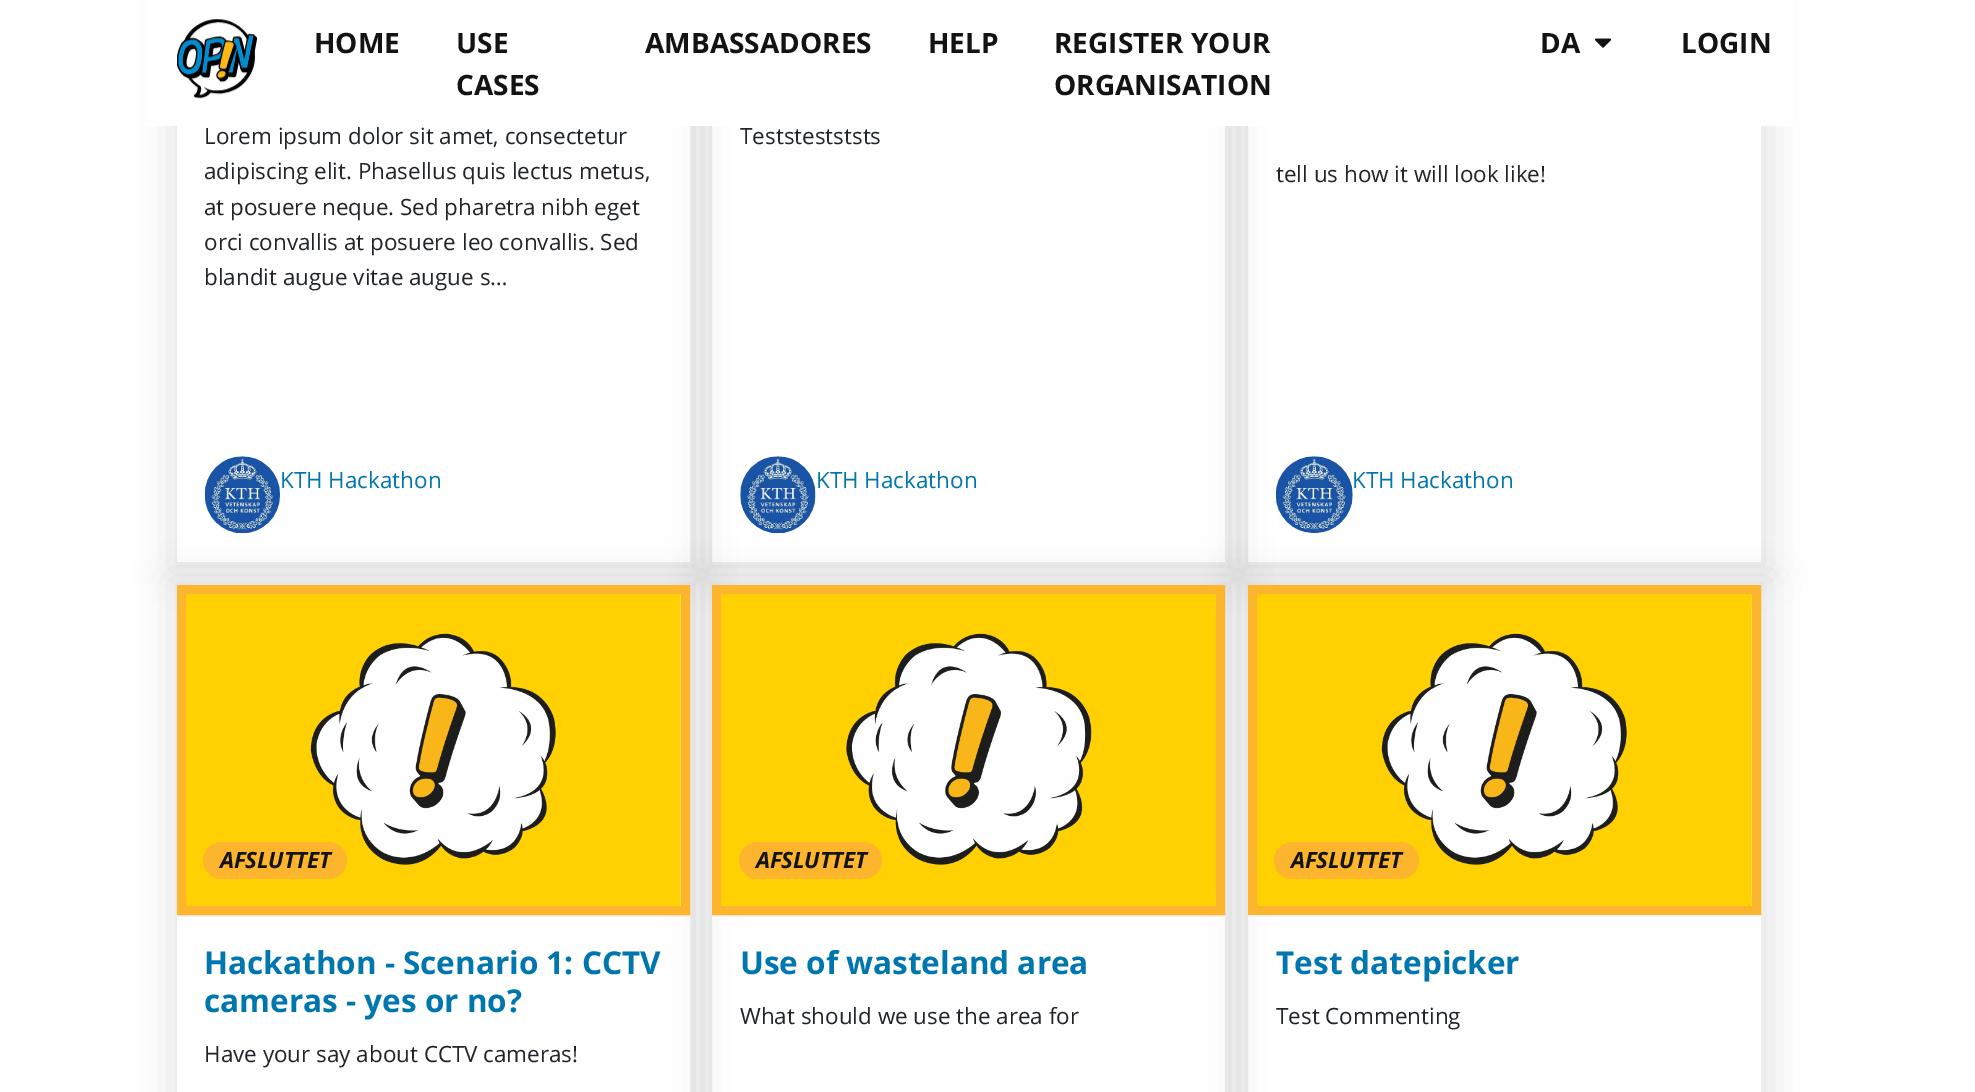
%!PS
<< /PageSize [1975 1092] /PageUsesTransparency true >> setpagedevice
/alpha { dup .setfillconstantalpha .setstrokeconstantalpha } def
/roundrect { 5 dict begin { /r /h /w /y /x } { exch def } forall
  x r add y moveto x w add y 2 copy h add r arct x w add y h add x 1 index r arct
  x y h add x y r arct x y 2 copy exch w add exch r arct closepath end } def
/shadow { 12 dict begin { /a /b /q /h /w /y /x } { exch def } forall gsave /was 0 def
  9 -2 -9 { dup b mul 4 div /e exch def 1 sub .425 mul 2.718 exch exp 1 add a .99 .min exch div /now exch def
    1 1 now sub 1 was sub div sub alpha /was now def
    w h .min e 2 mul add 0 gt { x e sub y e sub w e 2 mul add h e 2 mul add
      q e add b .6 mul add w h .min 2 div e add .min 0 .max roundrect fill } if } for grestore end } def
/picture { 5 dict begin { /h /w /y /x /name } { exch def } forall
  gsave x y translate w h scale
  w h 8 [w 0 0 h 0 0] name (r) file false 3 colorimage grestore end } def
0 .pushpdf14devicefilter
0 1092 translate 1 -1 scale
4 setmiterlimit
1 setgray
0 0 1975 1092 rectfill
gsave
newpath 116 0 moveto 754 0 lineto 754 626 lineto 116 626 lineto closepath 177 -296 moveto 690 -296 lineto 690 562 lineto 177 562 lineto closepath eoclip newpath
0 setgray
170 -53 530 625 0 17.5 0.1 shadow
grestore
gsave
newpath 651 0 moveto 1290 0 lineto 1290 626 lineto 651 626 lineto closepath 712 -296 moveto 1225 -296 lineto 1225 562 lineto 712 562 lineto closepath eoclip newpath
0 setgray
705 -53 531 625 0 17.5 0.1 shadow
grestore
gsave
newpath 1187 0 moveto 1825 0 lineto 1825 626 lineto 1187 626 lineto closepath 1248 -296 moveto 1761 -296 lineto 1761 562 lineto 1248 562 lineto closepath eoclip newpath
0 setgray
1241 -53 530 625 0 17.5 0.1 shadow
grestore
148 0 1645 126 rectfill
(img1.rgb) 177 19 80 80 picture
/OpenSans-Bold [28 0 0 -28 0 0] selectfont
0.075 setgray
314 53 moveto (HOME) show
456 53 moveto (USE) show
456 95 moveto (CASES) show
645 53 moveto (AMBASSADORES) show
928 53 moveto (HELP) show
1054 53 moveto (REGISTER YOUR) show
1054 95 moveto (ORGANISATION) show
1540 53 moveto (DA) show
(img2.rgb) 1594 38 18 10 picture
1681 53 moveto (LOGIN) show
/OpenSans-Regular [22.4 0 0 -22.4 0 0] selectfont
0.129 0.145 0.161 setrgbcolor
204 144 moveto (Lorem ipsum dolor sit amet, consectetur) show
204 179 moveto (adipiscing elit. Phasellus quis lectus metus,) show
204 215 moveto (at posuere neque. Sed pharetra nibh eget) show
204 250 moveto (orci convallis at posuere leo convallis. Sed) show
204 285 moveto (blandit augue vitae augue s…) show
(img3.rgb) 204 456 76 78 picture
0 0.463 0.682 setrgbcolor
280 488 moveto (KTH Hackathon) show
0.129 0.145 0.161 setrgbcolor
740 144 moveto (Teststestststs) show
(img4.rgb) 740 456 76 78 picture
0 0.463 0.682 setrgbcolor
816 488 moveto (KTH Hackathon) show
0.129 0.145 0.161 setrgbcolor
1276 182 moveto (tell us how it will look like!) show
(img5.rgb) 1275 456 78 78 picture
0 0.463 0.682 setrgbcolor
1352 488 moveto (KTH Hackathon) show
gsave
newpath 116 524 moveto 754 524 lineto 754 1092 lineto 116 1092 lineto closepath 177 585 moveto 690 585 lineto 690 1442 lineto 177 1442 lineto closepath eoclip newpath
0 setgray
170 578 530 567 0 17.5 0.1 shadow
grestore
0.957 setgray
177 915 513 2 rectfill
gsave
newpath 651 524 moveto 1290 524 lineto 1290 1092 lineto 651 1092 lineto closepath 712 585 moveto 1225 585 lineto 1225 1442 lineto 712 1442 lineto closepath eoclip newpath
0 setgray
705 578 531 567 0 17.5 0.1 shadow
grestore
(img6.rgb) 186 594 495 312 picture
0.988 0.71 0.176 setrgbcolor
9 setlinewidth
181.5 589.5 504 321 rectstroke
203 842 144 37 18.5 roundrect fill
/OpenSans-BoldItalic [22.4 0 0 -22.4 0 0] selectfont
0.075 setgray
220 868 moveto -0.25 0 (AFSLUTTET) ashow
/OpenSans-Bold [31.5 0 0 -31.5 0 0] selectfont
0 0.463 0.682 setrgbcolor
204 974 moveto (Hackathon - Scenario 1: CCTV) show
204 1012 moveto (cameras - yes or no?) show
/OpenSans-Regular [22.4 0 0 -22.4 0 0] selectfont
0.129 0.145 0.161 setrgbcolor
204 1062 moveto (Have your say about CCTV cameras!) show
0.957 setgray
712 915 513 2 rectfill
gsave
newpath 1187 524 moveto 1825 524 lineto 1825 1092 lineto 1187 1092 lineto closepath 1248 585 moveto 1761 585 lineto 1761 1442 lineto 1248 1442 lineto closepath eoclip newpath
0 setgray
1241 578 530 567 0 17.5 0.1 shadow
grestore
(img7.rgb) 721 594 495 312 picture
0.988 0.71 0.176 setrgbcolor
716.5 589.5 504 321 rectstroke
739 842 143 37 18.5 roundrect fill
/OpenSans-BoldItalic [22.4 0 0 -22.4 0 0] selectfont
0.075 setgray
756 868 moveto -0.25 0 (AFSLUTTET) ashow
/OpenSans-Bold [31.5 0 0 -31.5 0 0] selectfont
0 0.463 0.682 setrgbcolor
740 974 moveto (Use of wasteland area) show
/OpenSans-Regular [22.4 0 0 -22.4 0 0] selectfont
0.129 0.145 0.161 setrgbcolor
740 1024 moveto (What should we use the area for) show
(img8.rgb) 1257 594 495 312 picture
0.988 0.71 0.176 setrgbcolor
1252.5 589.5 504 321 rectstroke
1274 842 145 37 18.5 roundrect fill
/OpenSans-BoldItalic [22.4 0 0 -22.4 0 0] selectfont
0.075 setgray
1291 868 moveto -0.25 0 (AFSLUTTET) ashow
0.957 setgray
1248 915 513 2 rectfill
/OpenSans-Bold [31.5 0 0 -31.5 0 0] selectfont
0 0.463 0.682 setrgbcolor
1276 974 moveto (Test datepicker) show
/OpenSans-Regular [22.4 0 0 -22.4 0 0] selectfont
0.129 0.145 0.161 setrgbcolor
1276 1024 moveto (Test Commenting) show
.poppdf14devicefilter showpage
